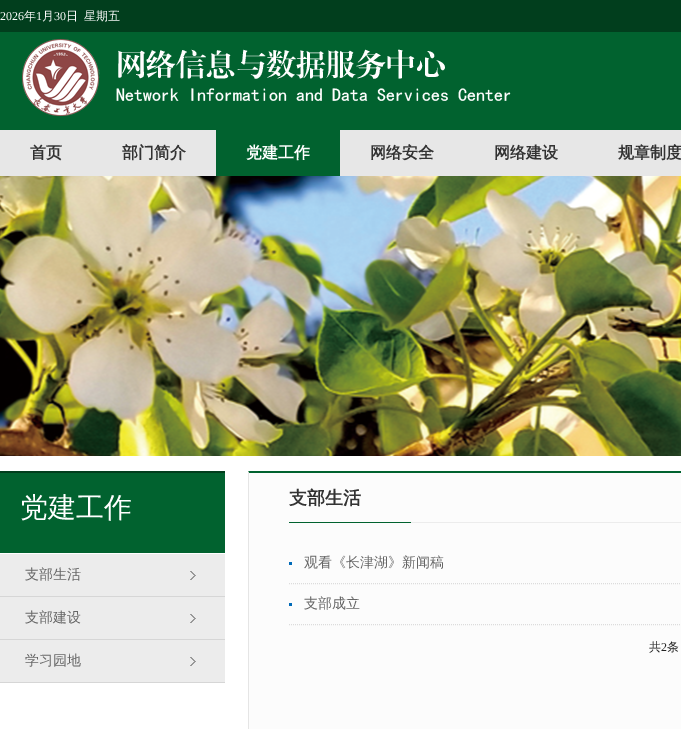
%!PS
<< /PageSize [681 729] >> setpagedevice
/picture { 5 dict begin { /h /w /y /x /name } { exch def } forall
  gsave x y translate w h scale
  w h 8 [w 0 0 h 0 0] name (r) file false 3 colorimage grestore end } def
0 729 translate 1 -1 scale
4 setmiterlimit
1 setgray
0 0 681 729 rectfill
0.004 0.384 0.184 setrgbcolor
0 32 681 98 rectfill
0.004 0.243 0.114 setrgbcolor
0 0 681 32 rectfill
/LiberationSerif-Regular [12 0 0 -12 0 0] selectfont
1 setgray
0 20 moveto (2026) show
/WenQuanYiZenHei-Medium [12 0 0 -12 0 0] selectfont
24 20 moveto (年) show
/LiberationSerif-Regular [12 0 0 -12 0 0] selectfont
36 20 moveto (1) show
/WenQuanYiZenHei-Medium [12 0 0 -12 0 0] selectfont
42 20 moveto (月) show
/LiberationSerif-Regular [12 0 0 -12 0 0] selectfont
54 20 moveto (30) show
/WenQuanYiZenHei-Medium [12 0 0 -12 0 0] selectfont
66 20 moveto (日) show
84 20 moveto (星期五) show
(img1.rgb) 22 39 489 77 picture
0.906 setgray
0 130 681 46 rectfill
/WenQuanYiZenHei-Bold [16 0 0 -16 0 0] selectfont
0.2 setgray
30 158 moveto (首页) show
122 158 moveto (部门简介) show
0.004 0.384 0.184 setrgbcolor
216 130 124 46 rectfill
1 setgray
246 158 moveto (党建工作) show
0.2 setgray
370 158 moveto (网络安全) show
494 158 moveto (网络建设) show
618 158 moveto (规章制度) show
(img2.rgb) 0 176 681 280 picture
0.004 0.384 0.184 setrgbcolor
0 473 225 80 rectfill
0.004 0.243 0.114 setrgbcolor
0 471 225 2 rectfill
/WenQuanYiZenHei-Medium [28 0 0 -28 0 0] selectfont
1 setgray
20 517 moveto (党建工作) show
0.925 setgray
0 554 225 42 rectfill
(img3.rgb) 190 571 6 9 picture
0.839 setgray
0 596 225 1 rectfill
/WenQuanYiZenHei-Medium [14 0 0 -14 0 0] selectfont
0.4 setgray
25 579 moveto (支部生活) show
0.925 setgray
0 597 225 42 rectfill
(img3.rgb) 190 614 6 9 picture
0.839 setgray
0 639 225 1 rectfill
0.4 setgray
25 622 moveto (支部建设) show
0.925 setgray
0 640 225 42 rectfill
(img3.rgb) 190 657 6 9 picture
0.839 setgray
0 682 225 1 rectfill
0.4 setgray
25 665 moveto (学习园地) show
0.988 setgray
249 473 432 256 rectfill
0.004 0.384 0.184 setrgbcolor
newpath 248 471 moveto 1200 471 lineto 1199 473 lineto 249 473 lineto closepath fill
0.898 setgray
newpath 248 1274 moveto 248 471 lineto 249 473 lineto 249 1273 lineto closepath fill
(img4.rgb) 289 522 392 1 picture
/WenQuanYiZenHei-Bold [18 0 0 -18 0 0] selectfont
0.2 setgray
289 504 moveto (支部生活) show
0 0.416 0.722 setrgbcolor
289 562 3 3 rectfill
0.863 setgray
[1 1] 0 setdash
newpath 289 583.5 moveto 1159 583.5 lineto stroke
/WenQuanYiZenHei-Medium [14 0 0 -14 0 0] selectfont
0.4 setgray
304 567 moveto (观看《长津湖》新闻稿) show
0 0.416 0.722 setrgbcolor
289 603 3 3 rectfill
0.863 setgray
newpath 289 624.5 moveto 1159 624.5 lineto stroke
0.4 setgray
304 608 moveto (支部成立) show
/WenQuanYiZenHei-Medium [12 0 0 -12 0 0] selectfont
0.133 setgray
649 651 moveto (共) show
/LiberationSerif-Regular [12 0 0 -12 0 0] selectfont
661 651 moveto (2) show
/WenQuanYiZenHei-Medium [12 0 0 -12 0 0] selectfont
667 651 moveto (条) show
showpage
